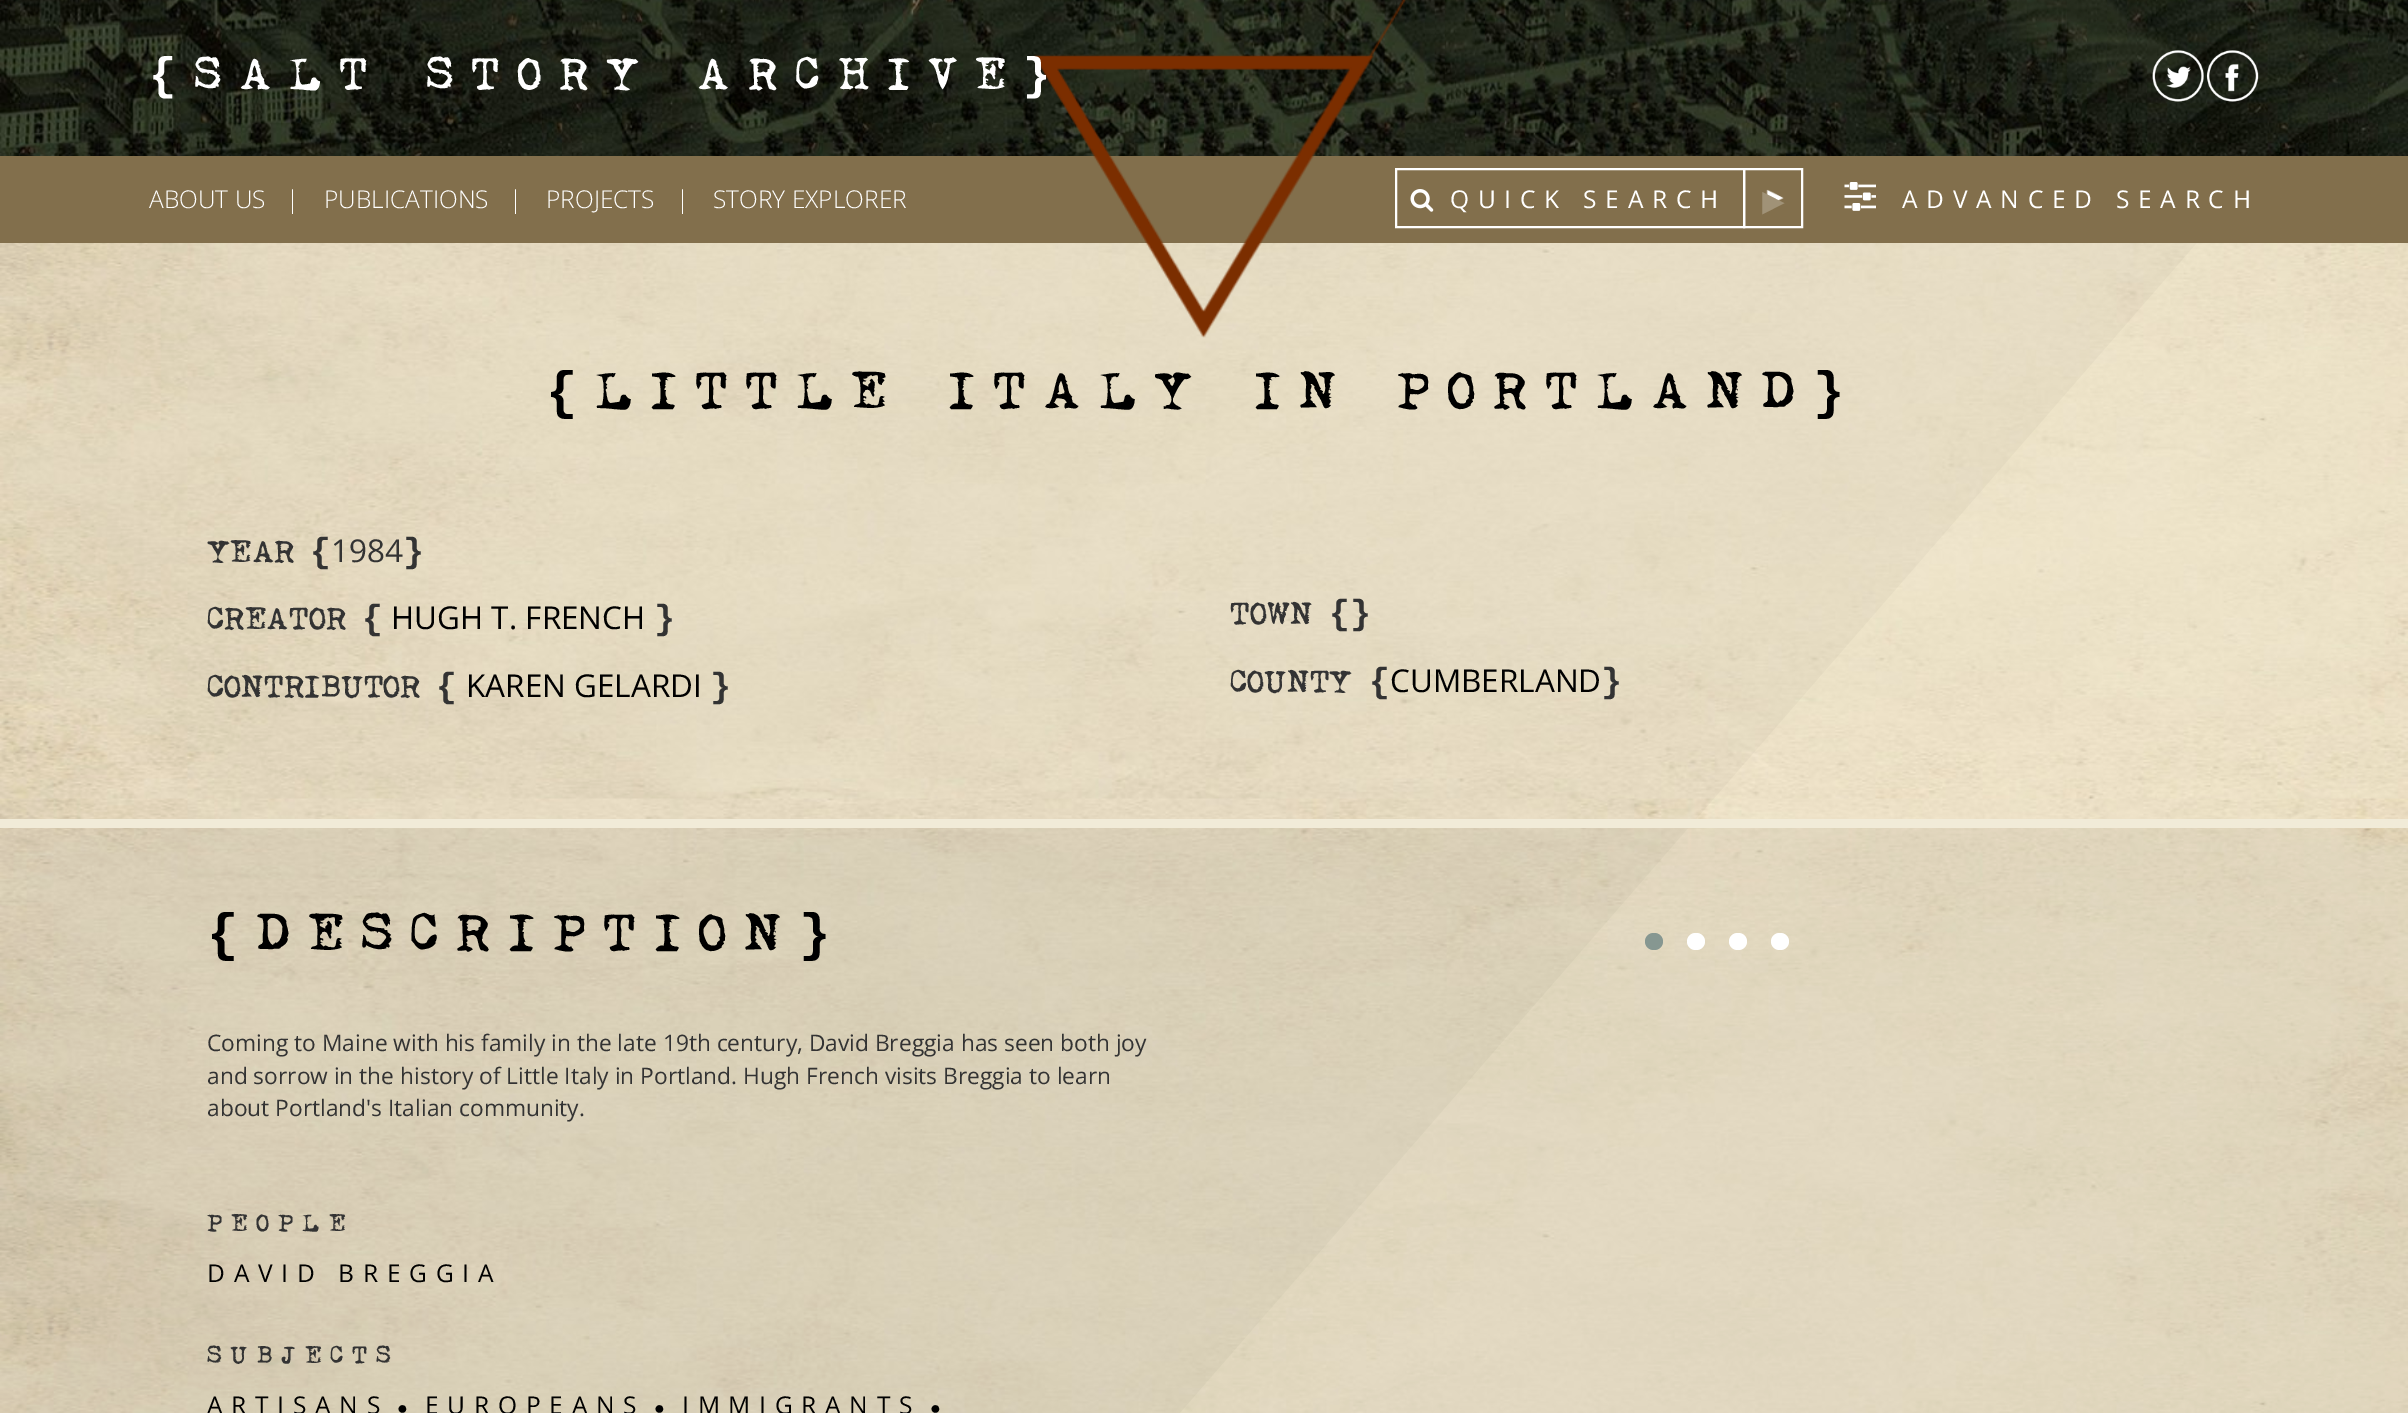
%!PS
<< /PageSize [2408 1413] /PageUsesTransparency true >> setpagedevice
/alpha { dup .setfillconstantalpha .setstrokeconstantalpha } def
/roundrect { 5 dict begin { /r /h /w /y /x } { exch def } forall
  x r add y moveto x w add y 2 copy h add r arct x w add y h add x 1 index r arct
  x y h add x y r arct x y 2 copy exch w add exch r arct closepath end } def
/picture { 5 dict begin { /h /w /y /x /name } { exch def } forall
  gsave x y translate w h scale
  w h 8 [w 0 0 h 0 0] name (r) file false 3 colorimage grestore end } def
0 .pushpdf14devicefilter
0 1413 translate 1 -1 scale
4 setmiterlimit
1 setgray
0 0 2408 1413 rectfill
(img1.rgb) 0 243 2408 1170 picture
(img2.rgb) 0 0 2408 156 picture
/LiberationMono-Bold [45.5 0 0 -45.5 0 0] selectfont
149 89 moveto 17.5 0 ({) ashow
/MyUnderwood-Regular [45.5 0 0 -45.5 0 0] selectfont
194 89 moveto 17.5 0 (SALT STORY ARCHIVE) ashow
0.51 0.435 0.298 setrgbcolor
0 156 2408 87 rectfill
(img5.rgb) 1033 0 373 338 picture
/LiberationMono-Bold [45.5 0 0 -45.5 0 0] selectfont
1 setgray
1023 89 moveto 17.5 0 (}) ashow
(img3.rgb) 2152 50 52 52 picture
(img4.rgb) 2207 50 52 52 picture
/OpenSans-Light [24.5 0 0 -24.5 0 0] selectfont
149 208 moveto (ABOUT US) show
286 208 moveto (|) show
324 208 moveto (PUBLICATIONS) show
509 208 moveto (|) show
546 208 moveto (PROJECTS) show
676 208 moveto (|) show
713 208 moveto (STORY EXPLORER) show
(img6.rgb) 1410 189 24 23 picture
(img7.rgb) 1766 189 18 18 picture
2 setlinewidth
1744 169 58 58 rectstroke
1396 169 348 58 rectstroke
/OpenSans-Regular [24.5 0 0 -24.5 0 0] selectfont
1450 208 moveto 8.75 0 (QUICK SEARCH) ashow
/DejaVuSans-Regular [45.5 0 0 -45.5 0 0] selectfont
0.627 0.573 0.467 setrgbcolor
1762 215 moveto (▸) show
(img8.rgb) 1844 182 32 29 picture
/OpenSans-Regular [24.5 0 0 -24.5 0 0] selectfont
1 setgray
1902 208 moveto 8.75 0 (ADVANCED SEARCH) ashow
/LiberationMono-Bold [52.5 0 0 -52.5 0 0] selectfont
0 setgray
546 408 moveto 17.5 0 ({) ashow
/MyUnderwood-Regular [52.5 0 0 -52.5 0 0] selectfont
595 408 moveto 17.5 0 (LITTLE ITALY IN PORTLAND) ashow
/LiberationMono-Bold [52.5 0 0 -52.5 0 0] selectfont
1813 408 moveto 17.5 0 (}) ashow
/MyUnderwood-Regular [31.5 0 0 -31.5 0 0] selectfont
0.2 setgray
207 562 moveto (YEAR) show
/LiberationMono-Bold [35 0 0 -35 0 0] selectfont
310 562 moveto ({) show
/OpenSans-Regular [31.5 0 0 -31.5 0 0] selectfont
331 562 moveto (1984) show
/LiberationMono-Bold [35 0 0 -35 0 0] selectfont
403 562 moveto (}) show
/MyUnderwood-Regular [31.5 0 0 -31.5 0 0] selectfont
207 629 moveto (CREATOR) show
/LiberationMono-Bold [35 0 0 -35 0 0] selectfont
362 629 moveto ({) show
/OpenSans-Regular [31.5 0 0 -31.5 0 0] selectfont
0 setgray
391 629 moveto (HUGH T. FRENCH) show
/LiberationMono-Bold [35 0 0 -35 0 0] selectfont
0.2 setgray
654 629 moveto (}) show
/MyUnderwood-Regular [31.5 0 0 -31.5 0 0] selectfont
207 697 moveto (CONTRIBUTOR) show
/LiberationMono-Bold [35 0 0 -35 0 0] selectfont
436 697 moveto ({) show
/OpenSans-Regular [31.5 0 0 -31.5 0 0] selectfont
0 setgray
466 697 moveto (KAREN GELARDI) show
/LiberationMono-Bold [35 0 0 -35 0 0] selectfont
0.2 setgray
710 697 moveto (}) show
/MyUnderwood-Regular [31.5 0 0 -31.5 0 0] selectfont
1230 624 moveto (TOWN) show
/LiberationMono-Bold [35 0 0 -35 0 0] selectfont
1329 624 moveto ({}) show
/MyUnderwood-Regular [31.5 0 0 -31.5 0 0] selectfont
1230 692 moveto (COUNTY) show
/LiberationMono-Bold [35 0 0 -35 0 0] selectfont
1369 692 moveto ({) show
/OpenSans-Regular [31.5 0 0 -31.5 0 0] selectfont
0 setgray
1390 692 moveto (CUMBERLAND) show
/LiberationMono-Bold [35 0 0 -35 0 0] selectfont
0.2 setgray
1601 692 moveto (}) show
0.05 alpha
0 setgray
0 828 2408 585 rectfill
1 alpha
0.945 0.922 0.847 setrgbcolor
0 819 2408 9 rectfill
/LiberationMono-Bold [52.5 0 0 -52.5 0 0] selectfont
0 setgray
207 950 moveto 17.5 0 ({) ashow
/MyUnderwood-Regular [52.5 0 0 -52.5 0 0] selectfont
256 950 moveto 17.5 0 (DESCRIPTION) ashow
/LiberationMono-Bold [52.5 0 0 -52.5 0 0] selectfont
799 950 moveto 17.5 0 (}) ashow
/OpenSans-Regular [22.75 0 0 -22.75 0 0] selectfont
0.2 setgray
207 1051 moveto (Coming to Maine with his family in the late 19th century, David Breggia has seen both joy) show
207 1084 moveto (and sorrow in the history of Little Italy in Portland. Hugh French visits Breggia to learn) show
207 1116 moveto (about Portland's Italian community.) show
/MyUnderwood-Regular [24.5 0 0 -24.5 0 0] selectfont
207 1231 moveto 8.75 0 (PEOPLE) ashow
/OpenSans-Regular [24.5 0 0 -24.5 0 0] selectfont
0 setgray
207 1282 moveto 8.75 0 (DAVID BREGGIA) ashow
/MyUnderwood-Regular [24.5 0 0 -24.5 0 0] selectfont
0.2 setgray
207 1363 moveto 8.75 0 (SUBJECTS) ashow
/OpenSans-Regular [24.5 0 0 -24.5 0 0] selectfont
0 setgray
207 1414 moveto 8.75 0 (ARTISANS) ashow
/LiberationSans-Regular [18 0 0 -18 0 0] selectfont
397 1414 moveto 8.75 0 (●) ashow
/OpenSans-Regular [24.5 0 0 -24.5 0 0] selectfont
425 1414 moveto 8.75 0 (EUROPEANS) ashow
/LiberationSans-Regular [18 0 0 -18 0 0] selectfont
654 1414 moveto 8.75 0 (●) ashow
/OpenSans-Regular [24.5 0 0 -24.5 0 0] selectfont
682 1414 moveto 8.75 0 (IMMIGRANTS) ashow
/LiberationSans-Regular [18 0 0 -18 0 0] selectfont
930 1414 moveto 8.75 0 (●) ashow
0.525 0.592 0.569 setrgbcolor
1645 933 18 17 8.5 roundrect fill
1 setgray
1687 933 18 17 8.5 roundrect fill
1729 933 18 17 8.5 roundrect fill
1771 933 18 17 8.5 roundrect fill
.poppdf14devicefilter showpage
